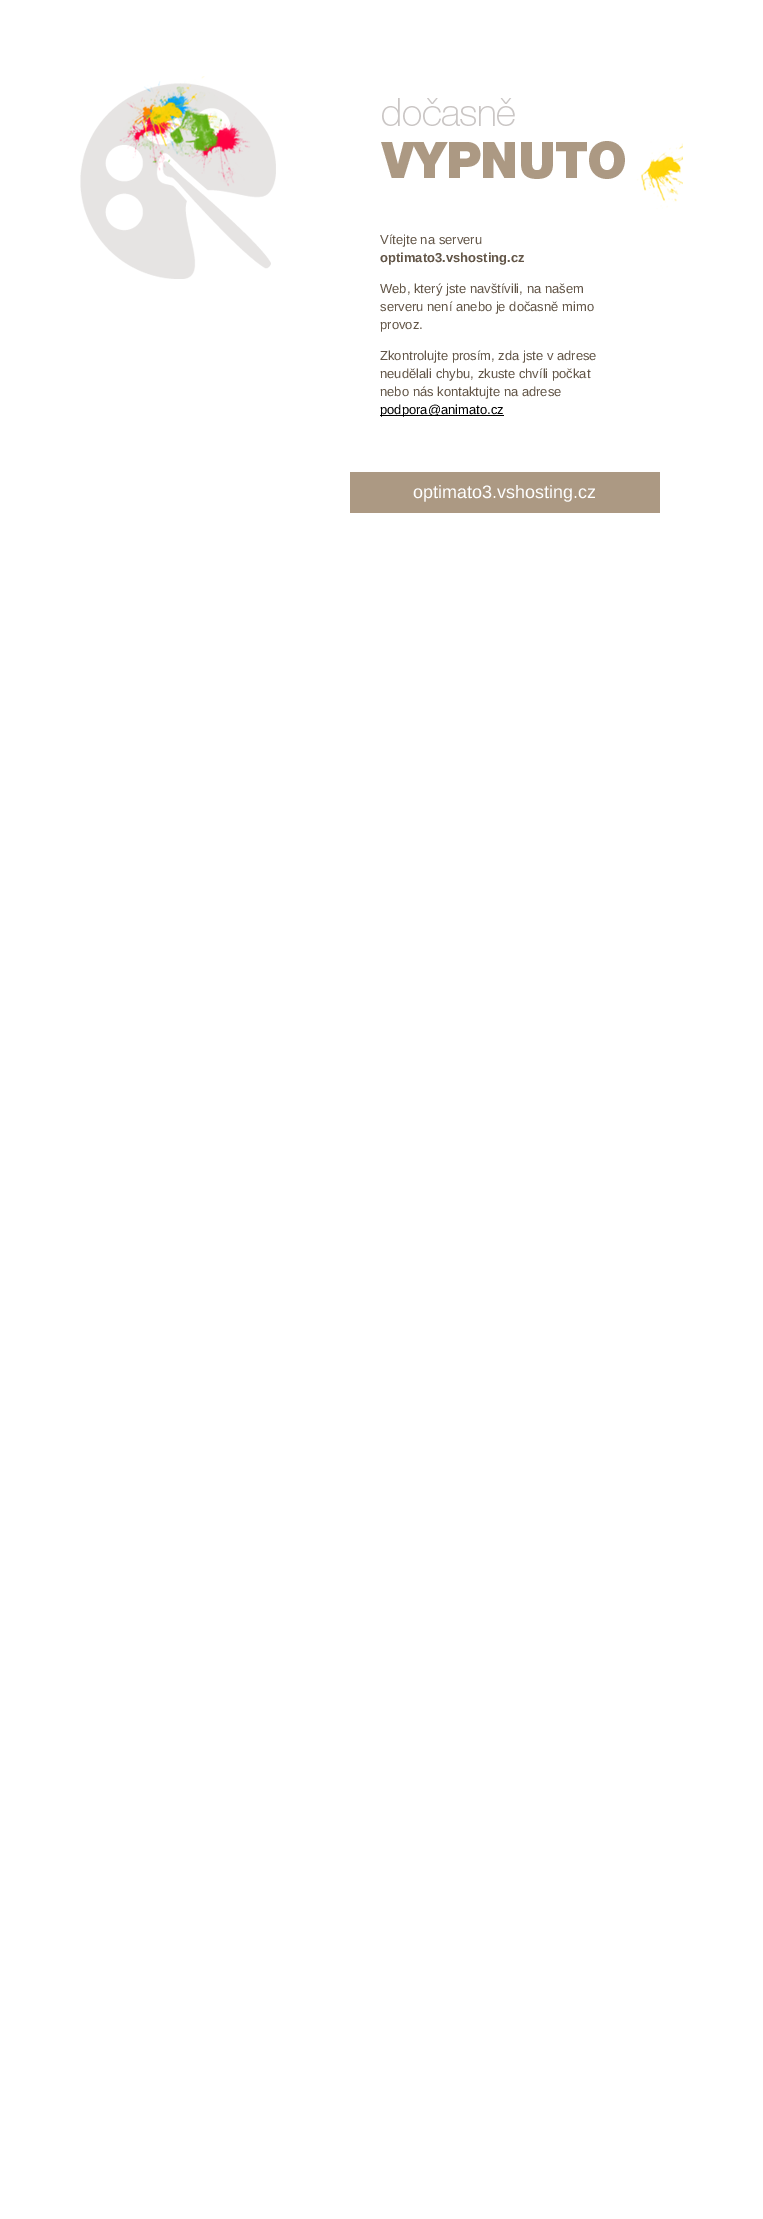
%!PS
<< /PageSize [763 2219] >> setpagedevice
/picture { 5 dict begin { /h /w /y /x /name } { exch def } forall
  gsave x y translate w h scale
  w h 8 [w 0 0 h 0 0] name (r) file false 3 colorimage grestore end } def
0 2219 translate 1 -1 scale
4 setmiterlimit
1 setgray
0 0 763 2219 rectfill
(img1.rgb) 80 76 603 203 picture
/LiberationSans-Regular [13 0 0 -13 0 0] selectfont
0.384 0.333 0.278 setrgbcolor
380 244 moveto (Vítejte na serveru) show
/LiberationSans-Bold [13 0 0 -13 0 0] selectfont
380 262 moveto (optimato3.vshosting.cz) show
/LiberationSans-Regular [13 0 0 -13 0 0] selectfont
380 293 moveto (Web, který jste navštívili, na našem) show
380 311 moveto (serveru není anebo je dočasně mimo) show
380 329 moveto (provoz.) show
380 360 moveto (Zkontrolujte prosím, zda jste v adrese) show
380 378 moveto (neudělali chybu, zkuste chvíli počkat) show
380 396 moveto (nebo nás kontaktujte na adrese) show
0 setgray
380 415 124 1 rectfill
380 414 moveto (podpora@animato.cz) show
0.675 0.6 0.514 setrgbcolor
350 472 310 41 rectfill
/LiberationSans-Regular [18 0 0 -18 0 0] selectfont
1 setgray
413 498 moveto (optimato3.vshosting.cz) show
showpage
